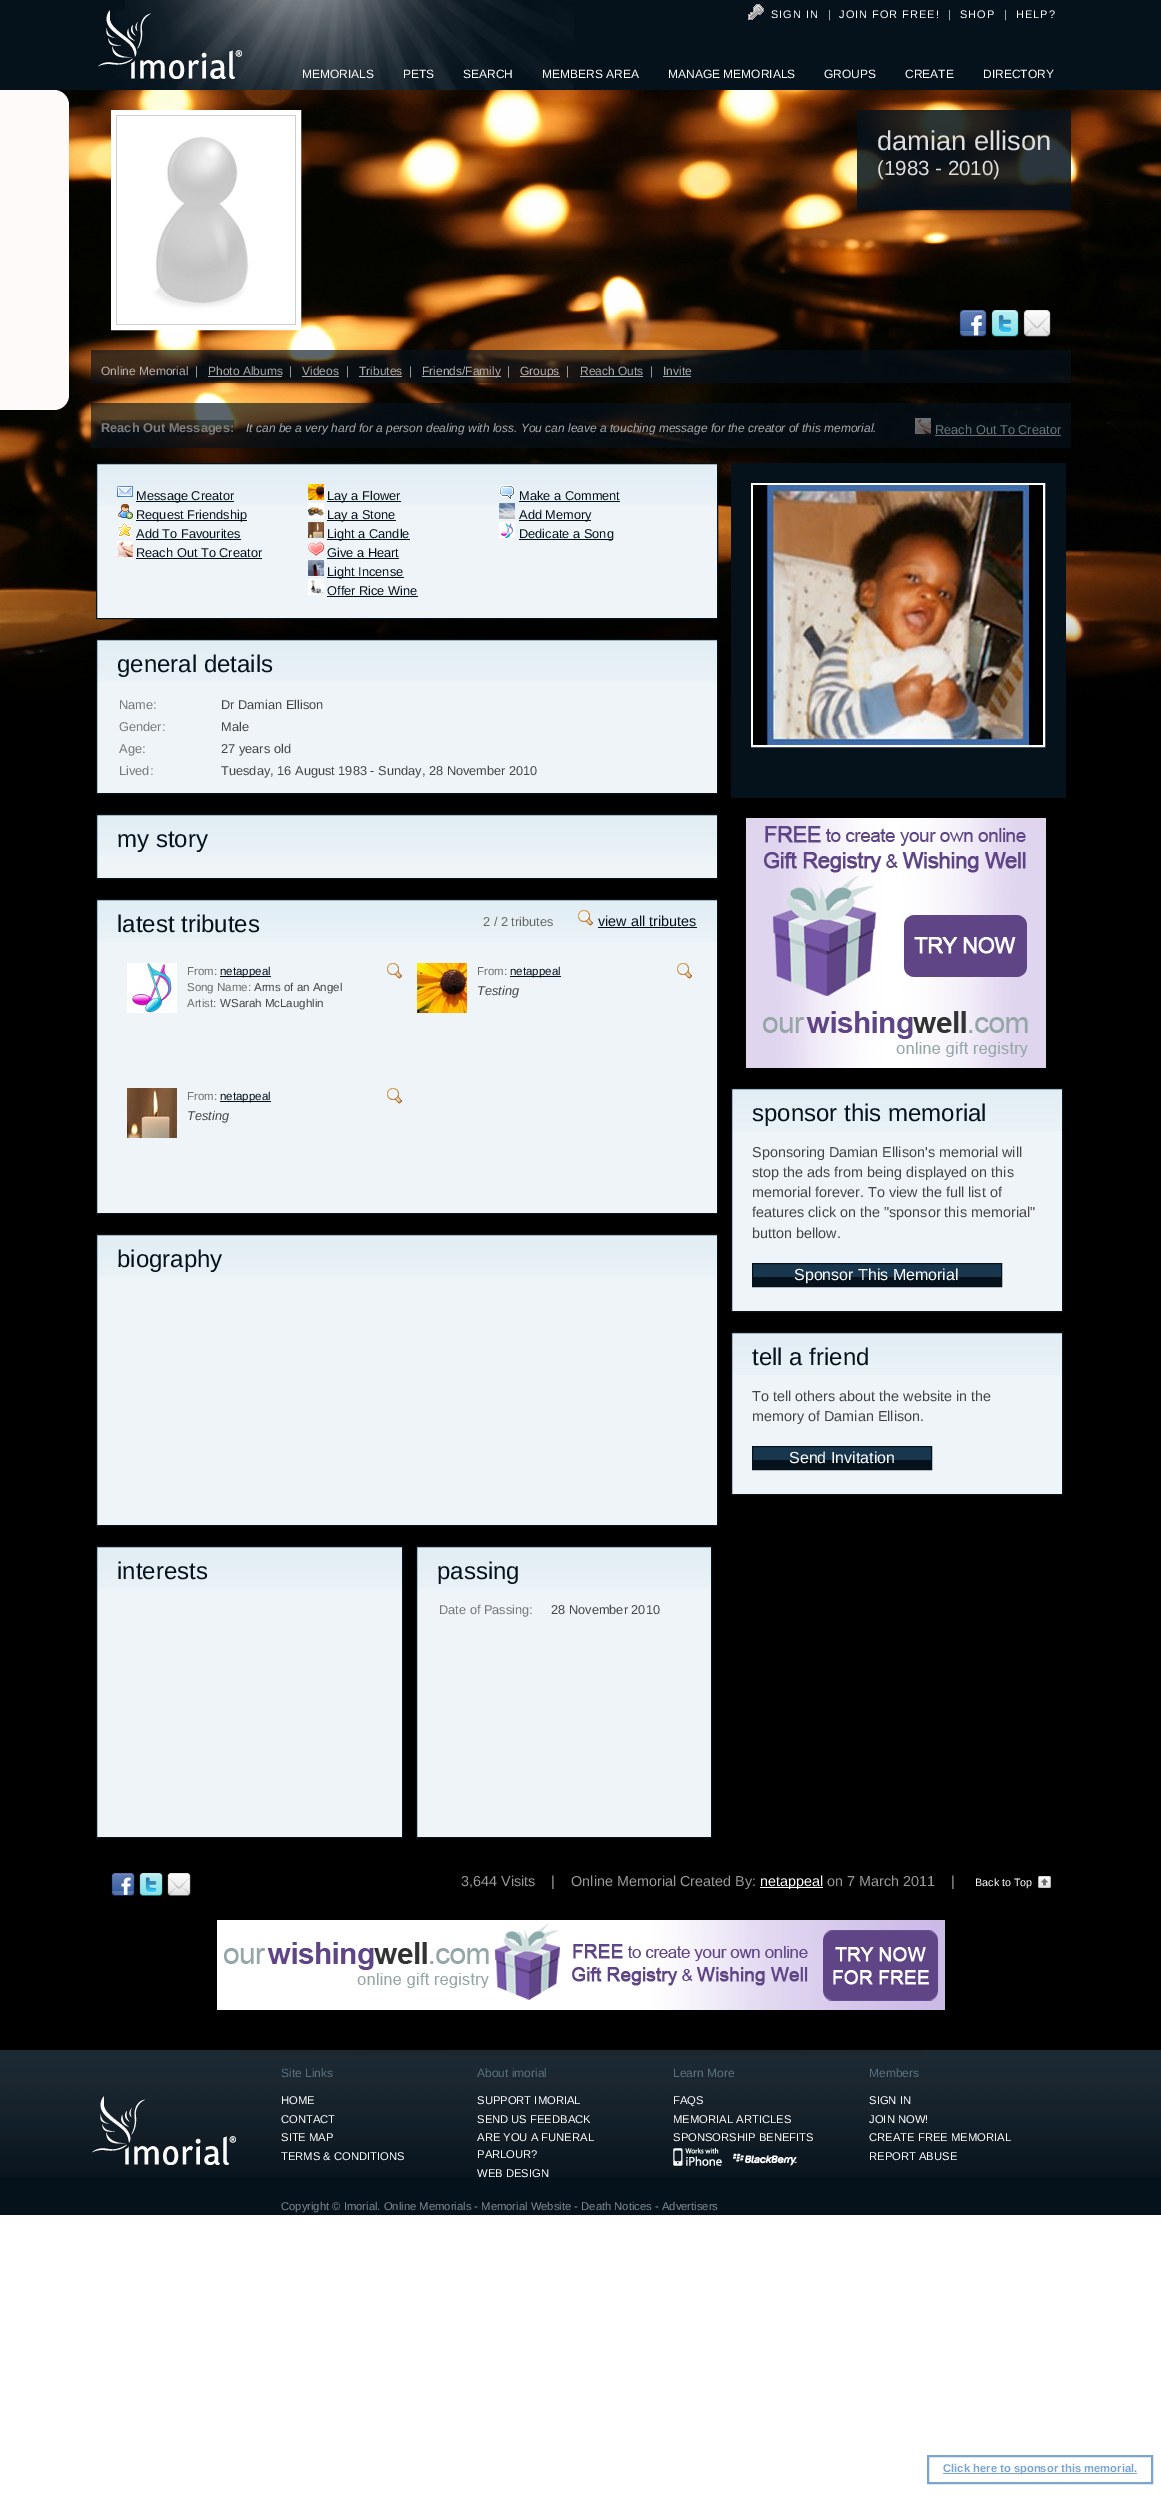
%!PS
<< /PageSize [1161 2519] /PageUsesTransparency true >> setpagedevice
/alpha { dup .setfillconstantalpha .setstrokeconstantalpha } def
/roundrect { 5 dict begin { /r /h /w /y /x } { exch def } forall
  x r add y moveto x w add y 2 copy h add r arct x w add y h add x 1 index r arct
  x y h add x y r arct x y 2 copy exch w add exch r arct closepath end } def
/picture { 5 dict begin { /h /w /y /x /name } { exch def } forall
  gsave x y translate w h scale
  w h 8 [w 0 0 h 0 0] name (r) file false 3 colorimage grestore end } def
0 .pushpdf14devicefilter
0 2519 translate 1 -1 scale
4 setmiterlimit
1 setgray
0 0 1161 2519 rectfill
0 setgray
0 699 1161 1351 rectfill
(img1.rgb) 0 90 1161 609 picture
0.02 0.071 0.11 setrgbcolor
0 0 1161 90 rectfill
(img2.rgb) 125 0 449 90 picture
(img3.rgb) 98 10 144 69 picture
(img4.rgb) 748 4 16 16 picture
/LiberationSans-Regular [11 0 0 -11 0 0] selectfont
1 setgray
771 18 moveto 1 0 (SIGN IN) ashow
0.867 setgray
828 18 moveto 1 0 (|) ashow
1 setgray
839 18 moveto 1 0 (JOIN FOR FREE!) ashow
0.867 setgray
948 18 moveto 1 0 (|) ashow
1 setgray
960 18 moveto 1 0 (SHOP) ashow
0.867 setgray
1004 18 moveto 1 0 (|) ashow
1 setgray
1016 18 moveto 1 0 (HELP?) ashow
/LiberationSans-Regular [12 0 0 -12 0 0] selectfont
302 78 moveto (MEMORIALS) show
403 78 moveto (PETS) show
463 78 moveto (SEARCH) show
542 78 moveto (MEMBERS AREA) show
668 78 moveto (MANAGE MEMORIALS) show
824 78 moveto (GROUPS) show
905 78 moveto (CREATE) show
983 78 moveto (DIRECTORY) show
1 0.98 0.98 setrgbcolor
-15 90 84 320 15 roundrect fill
1 setgray
5 setlinewidth
113.5 112.5 185 215 rectstroke
(img5.rgb) 116 115 180 210 picture
0.85 alpha
0.02 0.071 0.11 setrgbcolor
857 110 214 100 rectfill
/LiberationSans-Regular [27.25 0 0 -27.25 0 0] selectfont
1 alpha
0.867 setgray
877 150 moveto (damian ellison) show
/LiberationSans-Regular [20.5 0 0 -20.5 0 0] selectfont
877 175 moveto (\(1983 - 2010\)) show
(img6.rgb) 959 310 28 27 picture
(img7.rgb) 991 310 28 27 picture
(img8.rgb) 1023 310 28 27 picture
0.65 alpha
0.02 0.071 0.11 setrgbcolor
91 350 980 33 rectfill
/LiberationSans-Regular [12 0 0 -12 0 0] selectfont
1 alpha
0.71 0.694 0.682 setrgbcolor
101 375 moveto (Online Memorial) show
0.576 0.584 0.588 setrgbcolor
195 375 moveto (|) show
0.663 0.671 0.675 setrgbcolor
208 375 moveto (Photo Albums) show
0.65 alpha
1 setgray
208 376 74 1 rectfill
1 alpha
0.576 0.584 0.588 setrgbcolor
289 375 moveto (|) show
0.663 0.671 0.675 setrgbcolor
302 375 moveto (Videos) show
0.65 alpha
1 setgray
302 376 37 1 rectfill
1 alpha
0.576 0.584 0.588 setrgbcolor
346 375 moveto (|) show
0.663 0.671 0.675 setrgbcolor
359 375 moveto (Tributes) show
0.65 alpha
1 setgray
359 376 43 1 rectfill
1 alpha
0.576 0.584 0.588 setrgbcolor
409 375 moveto (|) show
0.65 alpha
1 setgray
422 376 79 1 rectfill
1 alpha
0.686 0.682 0.678 setrgbcolor
422 375 moveto (Friends/Family) show
0.6 setgray
507 375 moveto (|) show
0.65 alpha
1 setgray
520 376 40 1 rectfill
1 alpha
0.71 0.694 0.682 setrgbcolor
520 375 moveto (Groups) show
0.6 setgray
566 375 moveto (|) show
0.663 0.671 0.675 setrgbcolor
580 375 moveto (Reach Outs) show
0.65 alpha
1 setgray
580 376 63 1 rectfill
1 alpha
0.576 0.584 0.588 setrgbcolor
650 375 moveto (|) show
0.663 0.671 0.675 setrgbcolor
663 375 moveto (Invite) show
0.65 alpha
1 setgray
663 376 28 1 rectfill
0.02 0.071 0.11 setrgbcolor
91 403 980 45 rectfill
0.42 alpha
101 420 133 15 rectfill
/LiberationSans-Bold [12.8 0 0 -12.8 0 0] selectfont
1 alpha
0.494 0.494 0.486 setrgbcolor
101 432 moveto (Reach Out Messages:) show
/LiberationSans-Italic [12 0 0 -12 0 0] selectfont
0.663 0.671 0.675 setrgbcolor
246 432 moveto (It can be a very hard for a person dealing with loss. You can leave a touching message for the creator of this memorial.) show
0.016 0.059 0.086 setrgbcolor
915 422 16 15 rectfill
(img9.rgb) 915 418 16 16 picture
0.42 alpha
0.02 0.071 0.11 setrgbcolor
935 422 126 15 rectfill
/LiberationSans-Regular [12.8 0 0 -12.8 0 0] selectfont
1 alpha
0.431 0.455 0.475 setrgbcolor
935 434 moveto (Reach Out To Creator) show
0.427 0.427 0.424 setrgbcolor
935 435 126 1 rectfill
0.933 0.957 0.969 setrgbcolor
97 506 620 112 rectfill
(img10.rgb) 97 464 620 42 picture
0.02 0.071 0.11 setrgbcolor
1 setlinewidth
96.5 463.5 621 155 rectstroke
(img11.rgb) 117 486 16 11 picture
136 501 98 1 rectfill
136 500 moveto (Message Creator) show
(img12.rgb) 118 504 15 15 picture
136 520 111 1 rectfill
136 519 moveto (Request Friendship) show
(img13.rgb) 117 522 15 15 picture
136 538 moveto (Add To Favourites) show
136 539 105 1 rectfill
(img14.rgb) 117 541 16 16 picture
136 557 moveto (Reach Out To Creator) show
136 558 126 1 rectfill
(img15.rgb) 308 484 16 16 picture
327 501 74 1 rectfill
327 500 moveto (Lay a Flower) show
(img16.rgb) 308 503 16 16 picture
327 520 69 1 rectfill
327 519 moveto (Lay a Stone) show
(img17.rgb) 308 522 16 16 picture
327 539 83 1 rectfill
327 538 moveto (Light a Candle) show
(img18.rgb) 308 542 16 14 picture
327 557 moveto (Give a Heart) show
327 558 72 1 rectfill
(img19.rgb) 308 560 16 16 picture
327 577 77 1 rectfill
327 576 moveto (Light Incense) show
(img20.rgb) 308 579 16 16 picture
327 595 moveto (Offer Rice Wine) show
327 596 91 1 rectfill
(img21.rgb) 499 485 16 15 picture
519 500 moveto (Make a Comment) show
519 501 101 1 rectfill
(img22.rgb) 499 503 16 16 picture
519 520 72 1 rectfill
519 519 moveto (Add Memory) show
(img23.rgb) 499 522 16 16 picture
519 539 94 1 rectfill
519 538 moveto (Dedicate a Song) show
0.933 0.957 0.969 setrgbcolor
97 682 620 111 rectfill
(img10.rgb) 97 640 620 42 picture
0.02 0.071 0.11 setrgbcolor
96.5 639.5 621 154 rectstroke
/LiberationSans-Regular [24 0 0 -24 0 0] selectfont
117 672 moveto (general details) show
/LiberationSans-Regular [12.8 0 0 -12.8 0 0] selectfont
0.467 setgray
119 709 moveto (Name:) show
0.267 setgray
221 709 moveto (Dr Damian Ellison) show
0.467 setgray
119 731 moveto (Gender:) show
0.267 setgray
221 731 moveto (Male) show
0.467 setgray
119 753 moveto (Age:) show
0.267 setgray
221 753 moveto (27 years old) show
0.467 setgray
119 775 moveto (Lived:) show
0.267 setgray
221 775 moveto (Tuesday, 16 August 1983 - Sunday, 28 November 2010) show
0.933 0.957 0.969 setrgbcolor
97 857 620 21 rectfill
(img10.rgb) 97 815 620 42 picture
0.02 0.071 0.11 setrgbcolor
96.5 814.5 621 64 rectstroke
/LiberationSans-Regular [24 0 0 -24 0 0] selectfont
117 847 moveto (my story) show
0.933 0.957 0.969 setrgbcolor
97 942 620 271 rectfill
(img10.rgb) 97 900 620 42 picture
0.02 0.071 0.11 setrgbcolor
96.5 899.5 621 314 rectstroke
117 932 moveto (latest tributes) show
/LiberationSans-Regular [12.8 0 0 -12.8 0 0] selectfont
0.4 setgray
483 926 moveto (2 / 2 tributes) show
(img24.rgb) 578 910 15 16 picture
/LiberationSans-Regular [14.4 0 0 -14.4 0 0] selectfont
0.02 0.071 0.11 setrgbcolor
598 926 moveto (view all tributes) show
598 927 99 1 rectfill
(img25.rgb) 127 963 50 50 picture
/LiberationSans-Regular [11.5 0 0 -11.5 0 0] selectfont
0.435 setgray
187 975 moveto (From:) show
0.02 0.071 0.11 setrgbcolor
220 976 51 1 rectfill
220 975 moveto (netappeal) show
0.435 setgray
187 991 moveto (Song Name:) show
0.267 setgray
254 991 moveto (Arms of an Angel) show
0.435 setgray
187 1007 moveto (Artist:) show
0.267 setgray
220 1007 moveto (WSarah McLaughlin) show
(img26.rgb) 387 963 15 16 picture
(img27.rgb) 417 963 50 50 picture
0.435 setgray
477 975 moveto (From:) show
0.02 0.071 0.11 setrgbcolor
510 976 51 1 rectfill
510 975 moveto (netappeal) show
(img26.rgb) 677 963 15 16 picture
/LiberationSans-Italic [12.8 0 0 -12.8 0 0] selectfont
0.267 setgray
477 995 moveto (Testing) show
(img28.rgb) 127 1088 50 50 picture
/LiberationSans-Regular [11.5 0 0 -11.5 0 0] selectfont
0.435 setgray
187 1100 moveto (From:) show
0.02 0.071 0.11 setrgbcolor
220 1101 51 1 rectfill
220 1100 moveto (netappeal) show
(img26.rgb) 387 1088 15 16 picture
/LiberationSans-Italic [12.8 0 0 -12.8 0 0] selectfont
0.267 setgray
187 1120 moveto (Testing) show
0.933 0.957 0.969 setrgbcolor
97 1277 620 248 rectfill
(img10.rgb) 97 1235 620 42 picture
0.02 0.071 0.11 setrgbcolor
96.5 1234.5 621 291 rectstroke
/LiberationSans-Regular [24 0 0 -24 0 0] selectfont
117 1267 moveto (biography) show
0.933 0.957 0.969 setrgbcolor
97 1589 305 248 rectfill
(img29.rgb) 97 1547 305 42 picture
0.02 0.071 0.11 setrgbcolor
96.5 1546.5 306 291 rectstroke
117 1579 moveto (interests) show
0.933 0.957 0.969 setrgbcolor
417 1589 294 248 rectfill
(img30.rgb) 417 1547 294 42 picture
0.02 0.071 0.11 setrgbcolor
416.5 1546.5 295 291 rectstroke
437 1579 moveto (passing) show
/LiberationSans-Regular [12.8 0 0 -12.8 0 0] selectfont
0.467 setgray
439 1614 moveto (Date of Passing:) show
0.267 setgray
551 1614 moveto (28 November 2010) show
0.02 0.071 0.11 setrgbcolor
731 463 335 335 rectfill
1 setgray
2 setlinewidth
752 484 292 262 rectstroke
(img31.rgb) 753 485 290 260 picture
(img32.rgb) 746 818 300 250 picture
0.933 0.957 0.969 setrgbcolor
732 1131 330 180 rectfill
(img33.rgb) 732 1089 330 42 picture
0.02 0.071 0.11 setrgbcolor
1 setlinewidth
731.5 1088.5 331 223 rectstroke
/LiberationSans-Regular [24 0 0 -24 0 0] selectfont
752 1121 moveto (sponsor this memorial) show
/LiberationSans-Regular [14.4 0 0 -14.4 0 0] selectfont
0.267 setgray
752 1157 moveto (Sponsoring Damian Ellison's memorial will) show
752 1177 moveto (stop the ads from being displayed on this) show
752 1197 moveto (memorial forever. To view the full list of) show
752 1217 moveto (features click on the "sponsor this memorial") show
752 1238 moveto (button bellow.) show
(img34.rgb) 753 1264 248 22 picture
0.02 0.071 0.11 setrgbcolor
752.5 1263.5 249 23 rectstroke
/LiberationSans-Regular [16 0 0 -16 0 0] selectfont
1 setgray
794 1280 moveto (Sponsor This Memorial) show
0.933 0.957 0.969 setrgbcolor
732 1375 330 119 rectfill
(img33.rgb) 732 1333 330 42 picture
0.02 0.071 0.11 setrgbcolor
731.5 1332.5 331 162 rectstroke
/LiberationSans-Regular [24 0 0 -24 0 0] selectfont
752 1365 moveto (tell a friend) show
/LiberationSans-Regular [14.4 0 0 -14.4 0 0] selectfont
0.267 setgray
752 1401 moveto (To tell others about the website in the) show
752 1421 moveto (memory of Damian Ellison.) show
(img35.rgb) 753 1447 178 22 picture
0.02 0.071 0.11 setrgbcolor
752.5 1446.5 179 23 rectstroke
/LiberationSans-Regular [16 0 0 -16 0 0] selectfont
1 setgray
789 1463 moveto (Send Invitation) show
(img36.rgb) 111 1873 24 23 picture
(img37.rgb) 139 1873 24 23 picture
(img38.rgb) 167 1873 24 23 picture
/LiberationSans-Regular [14.4 0 0 -14.4 0 0] selectfont
0.6 setgray
461 1886 moveto (3,644 Visits    |    Online Memorial Created By:) show
1 setgray
760 1887 63 1 rectfill
760 1886 moveto (netappeal) show
0.6 setgray
827 1886 moveto (on 7 March 2011    |) show
/LiberationSans-Regular [10.75 0 0 -10.75 0 0] selectfont
1 setgray
975 1886 moveto (Back to Top) show
(img39.rgb) 1038 1876 13 12 picture
0.482 0.647 0.82 setrgbcolor
2 setlinewidth
928 2456 224 27 rectstroke
943 2473 194 1 rectfill
/LiberationSans-Bold [11.25 0 0 -11.25 0 0] selectfont
943 2472 moveto (Click here to sponsor this memorial.) show
(img40.rgb) 217 1920 728 90 picture
0.02 0.071 0.11 setrgbcolor
0 2050 1161 165 rectfill
(img41.rgb) 0 2050 1161 128 picture
(img42.rgb) 238 2050 686 6 picture
(img43.rgb) 92 2096 144 69 picture
/LiberationSans-Regular [12 0 0 -12 0 0] selectfont
0.349 0.443 0.498 setrgbcolor
281 2077 moveto (Site Links) show
/LiberationSans-Regular [11.25 0 0 -11.25 0 0] selectfont
1 setgray
281 2104 moveto (HOME) show
281 2123 moveto (CONTACT) show
281 2141 moveto (SITE MAP) show
281 2160 moveto (TERMS & CONDITIONS) show
/LiberationSans-Regular [12 0 0 -12 0 0] selectfont
0.349 0.443 0.498 setrgbcolor
477 2077 moveto (About imorial) show
/LiberationSans-Regular [11.25 0 0 -11.25 0 0] selectfont
1 setgray
477 2104 moveto (SUPPORT IMORIAL) show
477 2123 moveto (SEND US FEEDBACK) show
477 2141 moveto (ARE YOU A FUNERAL) show
477 2158 moveto (PARLOUR?) show
477 2177 moveto (WEB DESIGN) show
/LiberationSans-Regular [12 0 0 -12 0 0] selectfont
0.349 0.443 0.498 setrgbcolor
673 2077 moveto (Learn More) show
/LiberationSans-Regular [11.25 0 0 -11.25 0 0] selectfont
1 setgray
673 2104 moveto (FAQS) show
673 2123 moveto (MEMORIAL ARTICLES) show
673 2141 moveto (SPONSORSHIP BENEFITS) show
(img44.rgb) 673 2148 124 18 picture
/LiberationSans-Regular [12 0 0 -12 0 0] selectfont
0.349 0.443 0.498 setrgbcolor
869 2077 moveto (Members) show
/LiberationSans-Regular [11.25 0 0 -11.25 0 0] selectfont
1 setgray
869 2104 moveto (SIGN IN) show
869 2123 moveto (JOIN NOW!) show
869 2141 moveto (CREATE FREE MEMORIAL) show
869 2160 moveto (REPORT ABUSE) show
0.51 0.537 0.557 setrgbcolor
281 2210 moveto (Copyright © Imorial. Online Memorials - Memorial Website - Death Notices - Advertisers) show
.poppdf14devicefilter showpage
